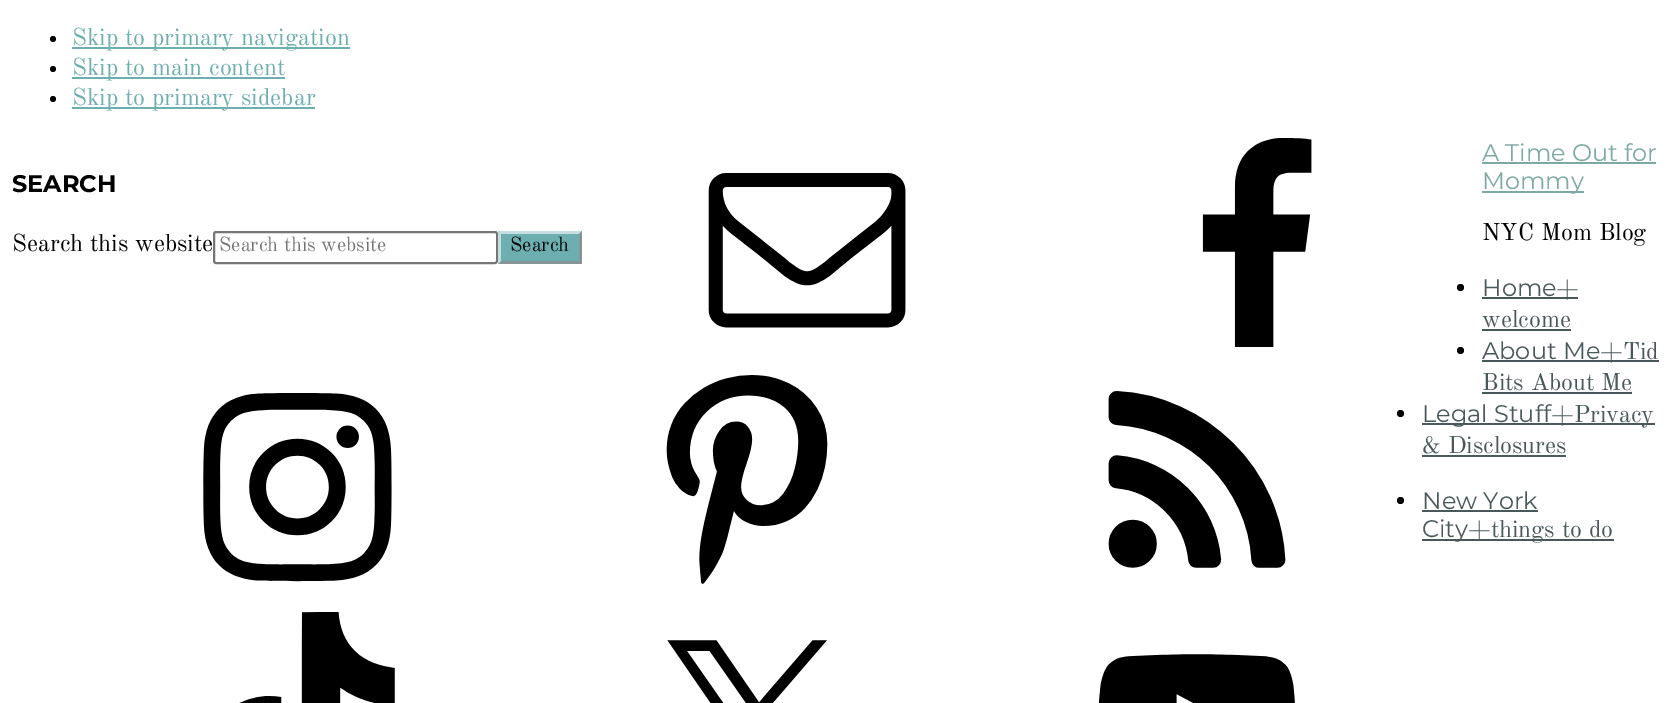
%!PS
<< /PageSize [1670 703] >> setpagedevice
/roundrect { 5 dict begin { /r /h /w /y /x } { exch def } forall
  x r add y moveto x w add y 2 copy h add r arct x w add y h add x 1 index r arct
  x y h add x y r arct x y 2 copy exch w add exch r arct closepath end } def
/picture { 5 dict begin { /h /w /y /x /name } { exch def } forall
  gsave x y translate w h scale
  w h 8 [w 0 0 h 0 0] name (r) file false 3 colorimage grestore end } def
0 703 translate 1 -1 scale
4 setmiterlimit
1 setgray
0 0 1670 703 rectfill
0 setgray
newpath 53 39 3 0 360 arc closepath fill
0.427 0.686 0.694 setrgbcolor
72 47 278 2 rectfill
/OldStandardTT-Regular [24 0 0 -24 0 0] selectfont
72 45 moveto (Skip to primary navigation) show
0 setgray
newpath 53 69 3 0 360 arc closepath fill
0.427 0.686 0.694 setrgbcolor
72 77 213 2 rectfill
72 75 moveto (Skip to main content) show
0 setgray
newpath 53 99 3 0 360 arc closepath fill
0.427 0.686 0.694 setrgbcolor
72 107 243 2 rectfill
72 105 moveto (Skip to primary sidebar) show
(img1.rgb) 708 173 198 155 picture
(img2.rgb) 1202 138 110 209 picture
(img3.rgb) 203 393 189 189 picture
(img4.rgb) 666 375 162 209 picture
(img5.rgb) 1108 391 178 177 picture
(img6.rgb) 239 612 156 91 picture
(img7.rgb) 667 640 160 63 picture
(img8.rgb) 1098 654 197 49 picture
/Montserrat-Bold [24 0 0 -24 0 0] selectfont
0 setgray
12 192 moveto (SEARCH) show
/OldStandardTT-Regular [24 0 0 -24 0 0] selectfont
12 251 moveto (Search this website) show
0.463 setgray
2 setlinewidth
214 232 283 31 2 roundrect stroke
/OldStandardTT-Regular [20 0 0 -20 0 0] selectfont
0.459 setgray
219 251 moveto (Search this website) show
0.427 0.686 0.694 setrgbcolor
498 231 84 33 rectfill
0.78 0.871 0.882 setrgbcolor
newpath 498 231 moveto 582 231 lineto 579 234 lineto 501 234 lineto closepath fill
0.522 0.58 0.588 setrgbcolor
newpath 582 231 moveto 582 264 lineto 579 261 lineto 579 234 lineto closepath fill
newpath 582 264 moveto 498 264 lineto 501 261 lineto 579 261 lineto closepath fill
0.78 0.871 0.882 setrgbcolor
newpath 498 264 moveto 498 231 lineto 501 234 lineto 501 261 lineto closepath fill
0 setgray
510 251 moveto (Search) show
/Montserrat-Regular [24 0 0 -24 0 0] selectfont
0.49 0.663 0.647 setrgbcolor
1482 161 moveto (A Time Out for) show
1482 162 174 2 rectfill
1482 191 102 2 rectfill
1482 189 moveto (Mommy) show
/OldStandardTT-Regular [24 0 0 -24 0 0] selectfont
0 setgray
1482 240 moveto (NYC Mom Blog) show
newpath 1460.5 287.5 3.5 0 360 arc closepath fill
/Montserrat-Regular [24 0 0 -24 0 0] selectfont
0.286 0.349 0.357 setrgbcolor
1482 296 moveto (Home) show
1482 297 96 2 rectfill
/OldStandardTT-Regular [24 0 0 -24 0 0] selectfont
1556 296 moveto (+) show
1482 327 moveto (welcome) show
1482 329 89 2 rectfill
0 setgray
newpath 1460.5 350.5 3.5 0 360 arc closepath fill
/Montserrat-Regular [24 0 0 -24 0 0] selectfont
0.286 0.349 0.357 setrgbcolor
1482 359 moveto (About Me) show
1482 360 177 2 rectfill
/OldStandardTT-Regular [24 0 0 -24 0 0] selectfont
1600 359 moveto (+Tid) show
1482 390 moveto (Bits About Me) show
1482 392 150 2 rectfill
0 setgray
newpath 1400.5 413.5 3.5 0 360 arc closepath fill
0.286 0.349 0.357 setrgbcolor
1422 423 129 2 rectfill
/Montserrat-Regular [24 0 0 -24 0 0] selectfont
1422 422 moveto (Legal Stuff) show
1551 423 104 2 rectfill
/OldStandardTT-Regular [24 0 0 -24 0 0] selectfont
1551 422 moveto (+Privacy) show
1422 453 moveto (& Disclosures) show
1422 455 144 2 rectfill
0 setgray
newpath 1400.5 500.5 3.5 0 360 arc closepath fill
/Montserrat-Regular [24 0 0 -24 0 0] selectfont
0.286 0.349 0.357 setrgbcolor
1422 509 moveto (New York) show
1422 510 116 2 rectfill
1422 539 192 2 rectfill
1422 537 moveto (City) show
/OldStandardTT-Regular [24 0 0 -24 0 0] selectfont
1468 537 moveto (+things to do) show
showpage
